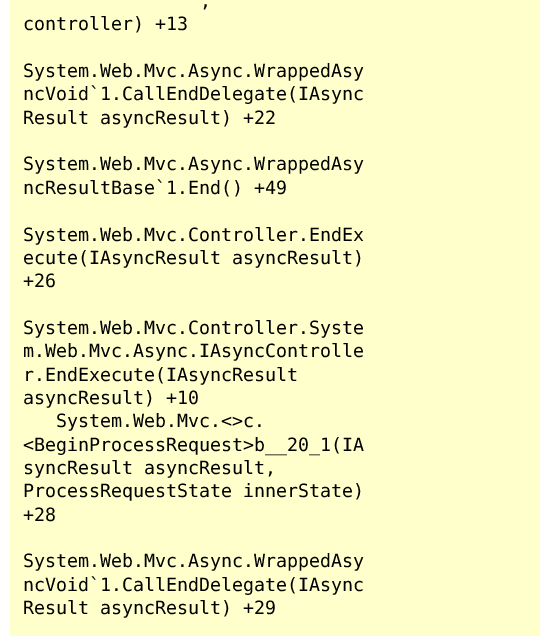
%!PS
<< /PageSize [549 636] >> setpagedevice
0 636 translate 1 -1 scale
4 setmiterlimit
1 setgray
0 0 549 636 rectfill
1 1 0.8 setrgbcolor
10 0 530 636 rectfill
/DejaVuSansMono-Regular [18.3 0 0 -18.3 0 0] selectfont
0 setgray
200 7 moveto (,) show
23 30 moveto (controller\) +13) show
23 77 moveto (System.Web.Mvc.Async.WrappedAsy) show
23 100 moveto (ncVoid`1.CallEndDelegate\(IAsync) show
23 124 moveto (Result asyncResult\) +22) show
23 170 moveto (System.Web.Mvc.Async.WrappedAsy) show
23 194 moveto (ncResultBase`1.End\(\) +49) show
23 241 moveto (System.Web.Mvc.Controller.EndEx) show
23 264 moveto (ecute\(IAsyncResult asyncResult\)) show
23 287 moveto (+26) show
23 334 moveto (System.Web.Mvc.Controller.Syste) show
23 357 moveto (m.Web.Mvc.Async.IAsyncControlle) show
23 381 moveto (r.EndExecute\(IAsyncResult) show
23 404 moveto (asyncResult\) +10) show
56 427 moveto (System.Web.Mvc.<>c.) show
23 451 moveto (<BeginProcessRequest>b__20_1\(IA) show
23 474 moveto (syncResult asyncResult,) show
23 497 moveto (ProcessRequestState innerState\)) show
23 521 moveto (+28) show
23 567 moveto (System.Web.Mvc.Async.WrappedAsy) show
23 591 moveto (ncVoid`1.CallEndDelegate\(IAsync) show
23 614 moveto (Result asyncResult\) +29) show
showpage
